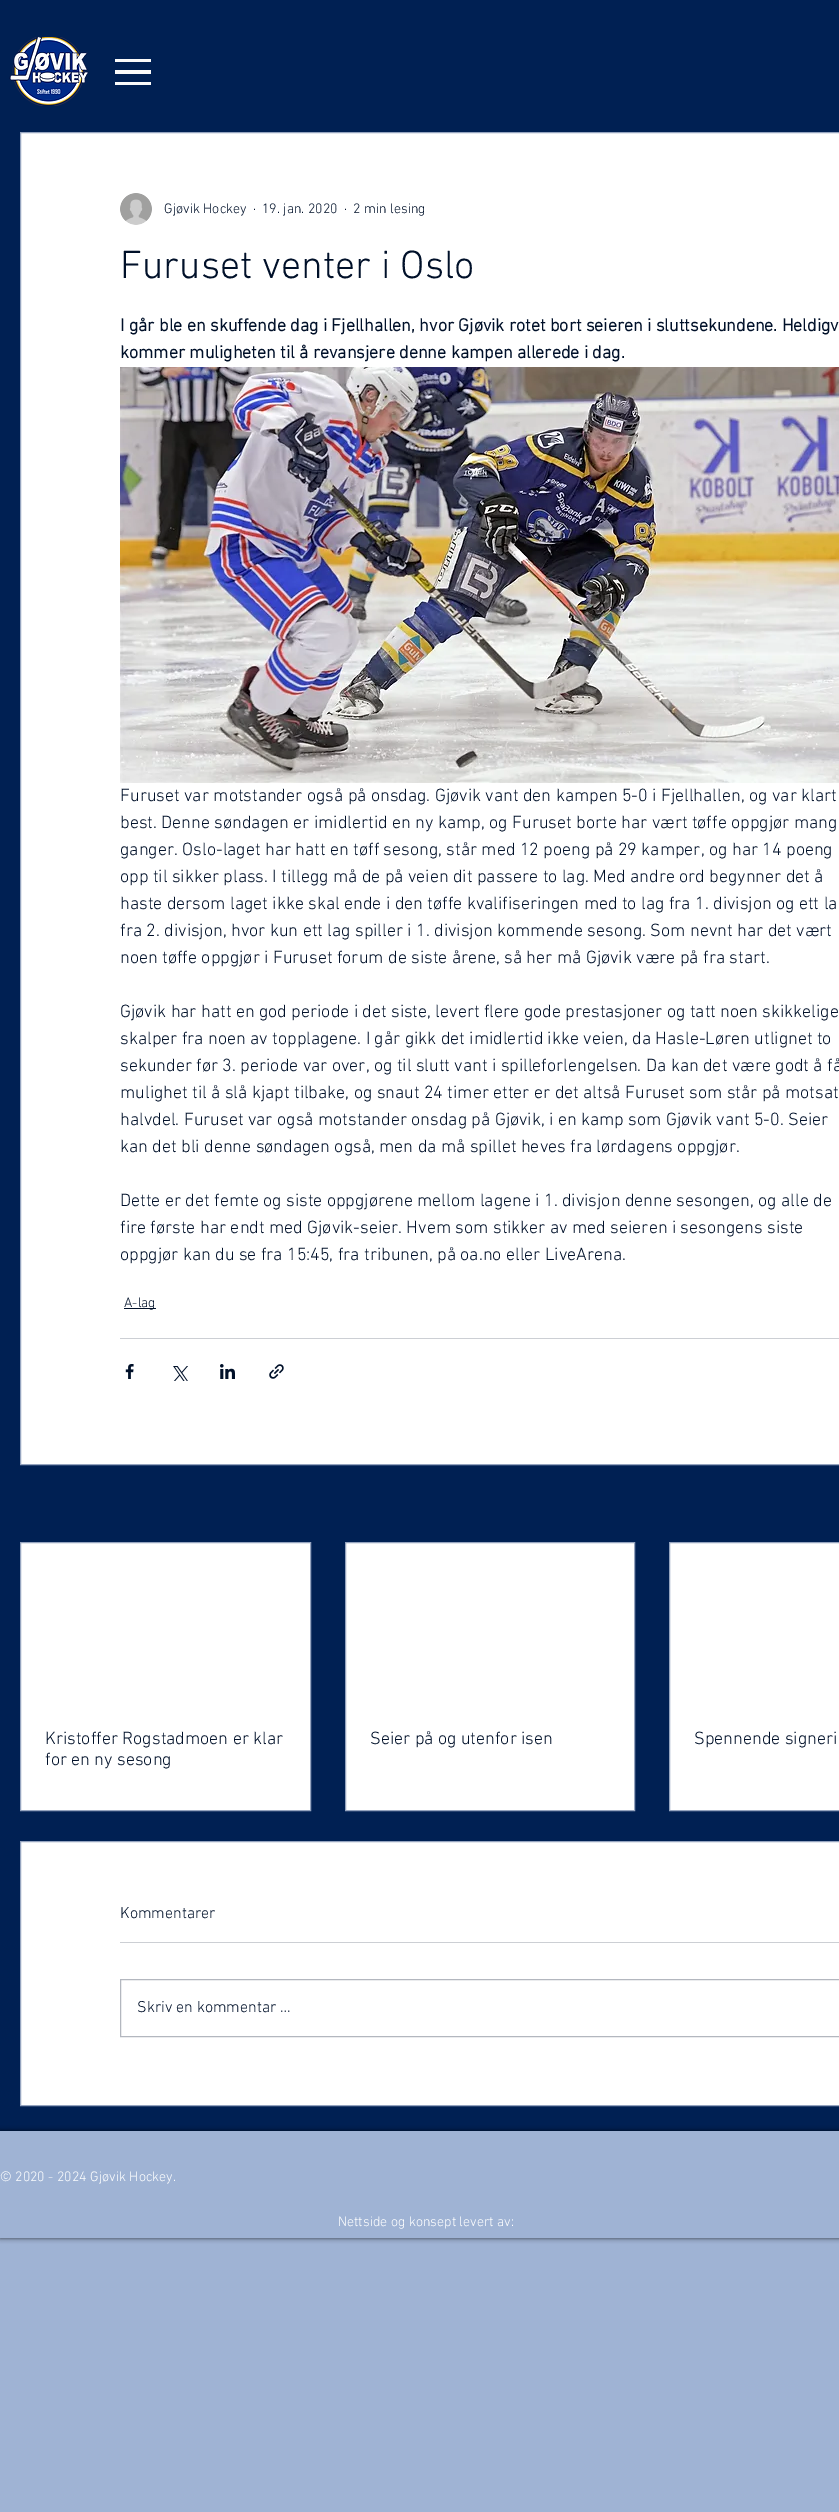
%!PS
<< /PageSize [839 2512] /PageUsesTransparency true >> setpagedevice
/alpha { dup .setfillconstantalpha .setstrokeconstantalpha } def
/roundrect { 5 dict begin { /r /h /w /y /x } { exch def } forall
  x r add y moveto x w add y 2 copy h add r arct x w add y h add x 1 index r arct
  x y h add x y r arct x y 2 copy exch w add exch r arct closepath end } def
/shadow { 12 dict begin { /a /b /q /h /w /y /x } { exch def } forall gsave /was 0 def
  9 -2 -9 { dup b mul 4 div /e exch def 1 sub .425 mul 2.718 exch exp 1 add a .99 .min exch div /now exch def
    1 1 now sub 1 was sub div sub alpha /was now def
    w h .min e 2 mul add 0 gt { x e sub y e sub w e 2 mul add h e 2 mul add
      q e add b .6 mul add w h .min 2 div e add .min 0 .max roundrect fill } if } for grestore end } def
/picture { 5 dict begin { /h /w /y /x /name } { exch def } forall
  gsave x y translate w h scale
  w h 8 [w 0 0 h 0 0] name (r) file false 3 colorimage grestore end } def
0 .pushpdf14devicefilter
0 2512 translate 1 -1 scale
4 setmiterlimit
0.624 0.702 0.831 setrgbcolor
0 0 839 2512 rectfill
0 0.125 0.325 setrgbcolor
0 0 839 2131 rectfill
(img1.rgb) 9 37 80 69 picture
0.98 setgray
115 82 36 3 rectfill
115 59 36 3 rectfill
115 70 36 4 rectfill
1 setgray
newpath 20.5 132.5 moveto 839.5 132.5 lineto 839.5 1464.5 lineto 20.5 1464.5 lineto closepath gsave fill grestore
0.584 0.643 0.749 setrgbcolor
stroke
(img2.rgb) 120 193 32 32 picture
/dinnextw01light-Light [14 0 0 -14 0 0] selectfont
0 0.063 0.161 setrgbcolor
164 213 moveto (Gjøvik Hockey) show
253 213 moveto (·) show
262 213 moveto (19. jan. 2020) show
344 213 moveto (·) show
353 213 moveto (2 min lesing) show
/dinnextw01light-Light [40 0 0 -40 0 0] selectfont
120 278 moveto (Furuset venter i Oslo) show
/dinnextw01light-Bold [18 0 0 -18 0 0] selectfont
120 331 moveto (I går ble en skuffende dag i Fjellhallen, hvor Gjøvik rotet bort seieren i sluttsekundene. Heldigv) show
120 358 moveto (kommer muligheten til å revansjere denne kampen allerede i dag.) show
(img3.rgb) 120 367 719 416 picture
/dinnextw01light-Light [18 0 0 -18 0 0] selectfont
120 801 moveto (Furuset var motstander også på onsdag. Gjøvik vant den kampen 5-0 i Fjellhallen, og var klart) show
120 828 moveto (best. Denne søndagen er imidlertid en ny kamp, og Furuset borte har vært tøffe oppgjør mang) show
120 855 moveto (ganger. Oslo-laget har hatt en tøff sesong, står med 12 poeng på 29 kamper, og har 14 poeng) show
120 882 moveto (opp til sikker plass. I tillegg må de på veien dit passere to lag. Med andre ord begynner det å) show
120 909 moveto (haste dersom laget ikke skal ende i den tøffe kvalifiseringen med to lag fra 1. divisjon og ett la) show
120 936 moveto (fra 2. divisjon, hvor kun ett lag spiller i 1. divisjon kommende sesong. Som nevnt har det vært) show
120 963 moveto (noen tøffe oppgjør i Furuset forum de siste årene, så her må Gjøvik være på fra start.) show
120 1017 moveto (Gjøvik har hatt en god periode i det siste, levert flere gode prestasjoner og tatt noen skikkelige) show
120 1044 moveto (skalper fra noen av topplagene. I går gikk det imidlertid ikke veien, da Hasle-Løren utlignet to) show
120 1071 moveto (sekunder før 3. periode var over, og til slutt vant i spilleforlengelsen. Da kan det være godt å få) show
120 1098 moveto (mulighet til å slå kjapt tilbake, og snaut 24 timer etter er det altså Furuset som står på motsat) show
120 1125 moveto (halvdel. Furuset var også motstander onsdag på Gjøvik, i en kamp som Gjøvik vant 5-0. Seier) show
120 1152 moveto (kan det bli denne søndagen også, men da må spillet heves fra lørdagens oppgjør.) show
120 1206 moveto (Dette er det femte og siste oppgjørene mellom lagene i 1. divisjon denne sesongen, og alle de) show
120 1233 moveto (fire første har endt med Gjøvik-seier. Hvem som stikker av med seieren i sesongens siste) show
120 1260 moveto (oppgjør kan du se fra 15:45, fra tribunen, på oa.no eller LiveArena.) show
124 1308 32 1 rectfill
/dinnextw01light-Light [14 0 0 -14 0 0] selectfont
124 1307 moveto (A-lag) show
0.8 0.812 0.831 setrgbcolor
120 1338 719 1 rectfill
(img4.rgb) 125 1364 9 15 picture
(img5.rgb) 173 1366 15 15 picture
(img6.rgb) 220 1364 15 15 picture
(img7.rgb) 269 1364 15 15 picture
1 setgray
newpath 20.5 1542.5 moveto 310.5 1542.5 lineto 310.5 1810.5 lineto 20.5 1810.5 lineto closepath gsave fill grestore
0.584 0.643 0.749 setrgbcolor
stroke
/dinnextw01light-Light [18 0 0 -18 0 0] selectfont
0 0.063 0.161 setrgbcolor
45 1744 moveto (Kristoffer Rogstadmoen er klar) show
45 1765 moveto (for en ny sesong) show
1 setgray
newpath 345.5 1542.5 moveto 634.5 1542.5 lineto 634.5 1810.5 lineto 345.5 1810.5 lineto closepath gsave fill grestore
0.584 0.643 0.749 setrgbcolor
stroke
0 0.063 0.161 setrgbcolor
370 1744 moveto (Seier på og utenfor isen) show
1 setgray
newpath 669.5 1542.5 moveto 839.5 1542.5 lineto 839.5 1810.5 lineto 669.5 1810.5 lineto closepath gsave fill grestore
0.584 0.643 0.749 setrgbcolor
stroke
0 0.063 0.161 setrgbcolor
694 1744 moveto (Spennende signeri) show
1 setgray
newpath 20.5 1841.5 moveto 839.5 1841.5 lineto 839.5 2105.5 lineto 20.5 2105.5 lineto closepath gsave fill grestore
0.584 0.643 0.749 setrgbcolor
stroke
/dinnextw01light-Light [16 0 0 -16 0 0] selectfont
0 0.063 0.161 setrgbcolor
120 1918 moveto (Kommentarer) show
0.8 0.812 0.831 setrgbcolor
120 1942 719 1 rectfill
0.702 0.718 0.749 setrgbcolor
120.5 1979.5 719 57 rectstroke
0 0.063 0.161 setrgbcolor
137 2012 moveto (Skriv en kommentar …) show
gsave
newpath 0 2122 moveto 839 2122 lineto 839 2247 lineto 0 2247 lineto closepath 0 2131 moveto 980 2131 lineto 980 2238 lineto 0 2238 lineto closepath eoclip newpath
0 setgray
0 2131 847 107 0 2.5 0.7 shadow
grestore
/dinnextw01light-Light [14 0 0 -14 0 0] selectfont
1 setgray
0 2181 moveto (© 2020 - 2024 Gjøvik Hockey.) show
338 2226 moveto (Nettside og konsept levert av:) show
.poppdf14devicefilter showpage
